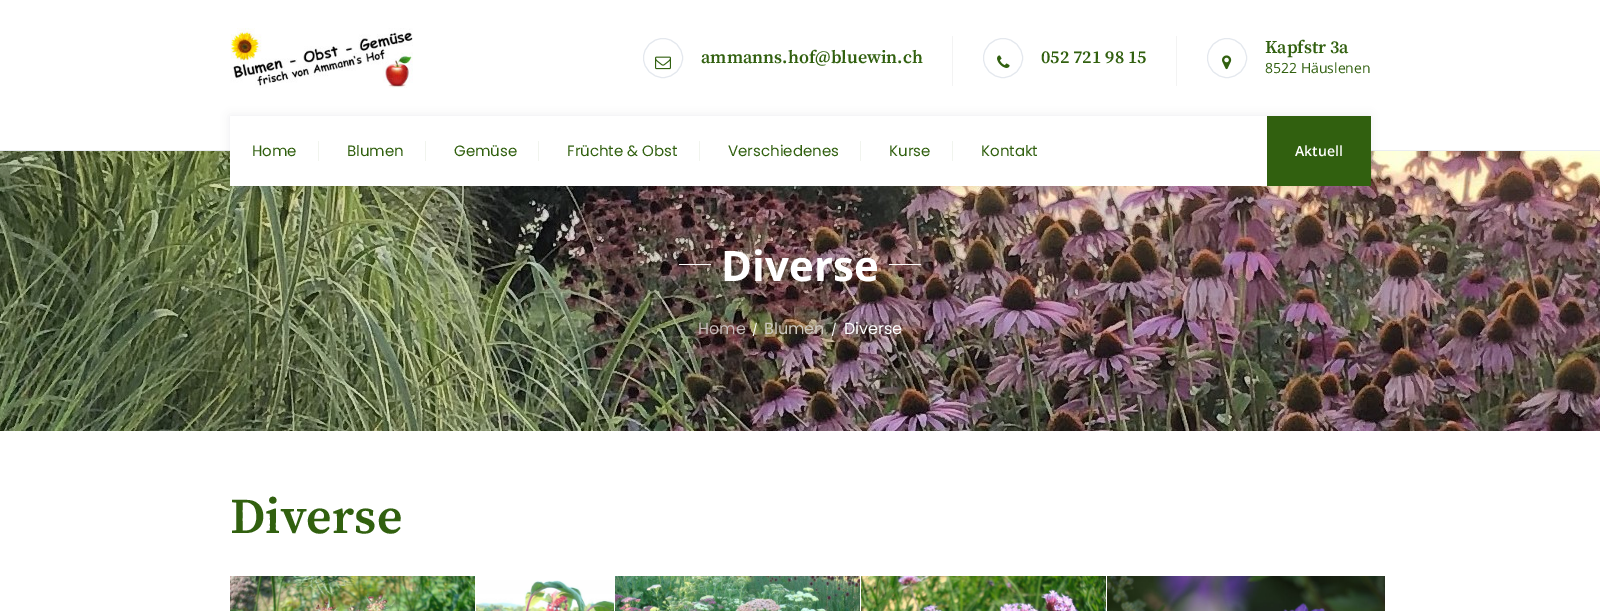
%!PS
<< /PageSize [1600 611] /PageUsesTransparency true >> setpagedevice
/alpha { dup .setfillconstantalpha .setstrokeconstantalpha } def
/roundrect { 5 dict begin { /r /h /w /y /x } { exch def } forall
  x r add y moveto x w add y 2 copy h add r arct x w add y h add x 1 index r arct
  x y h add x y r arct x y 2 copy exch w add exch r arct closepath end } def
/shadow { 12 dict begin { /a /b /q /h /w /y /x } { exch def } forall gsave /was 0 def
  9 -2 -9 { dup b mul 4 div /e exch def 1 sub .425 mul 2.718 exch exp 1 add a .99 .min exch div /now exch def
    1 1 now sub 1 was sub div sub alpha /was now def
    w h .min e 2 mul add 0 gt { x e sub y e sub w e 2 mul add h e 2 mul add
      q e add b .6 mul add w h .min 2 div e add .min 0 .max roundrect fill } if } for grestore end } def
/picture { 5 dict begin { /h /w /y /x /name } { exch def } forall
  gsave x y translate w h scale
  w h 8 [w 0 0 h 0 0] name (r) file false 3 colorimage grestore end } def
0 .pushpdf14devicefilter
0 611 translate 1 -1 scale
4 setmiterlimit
1 setgray
0 0 1600 611 rectfill
(img1.rgb) 230 28 183 60 picture
0.894 0.91 0.933 setrgbcolor
newpath 663 58 19.5 0 360 arc closepath stroke
(img2.rgb) 655 56 16 14 picture
/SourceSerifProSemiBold-SemiBold [18 0 0 -18 0 0] selectfont
0.192 0.376 0.059 setrgbcolor
701 63 moveto (ammanns.hof@bluewin.ch) show
0.953 setgray
952 36 1 50 rectfill
0.894 0.91 0.933 setrgbcolor
newpath 1003 58 19.5 0 360 arc closepath stroke
(img3.rgb) 997 55 13 13 picture
0.192 0.376 0.059 setrgbcolor
1041 63 moveto (052 721 98 15) show
0.953 setgray
1176 36 1 50 rectfill
0.894 0.91 0.933 setrgbcolor
newpath 1227 58 19.5 0 360 arc closepath stroke
(img4.rgb) 1222 55 10 15 picture
0.192 0.376 0.059 setrgbcolor
1265 53 moveto (Kapfstr 3a) show
/OpenSans-Regular [14 0 0 -14 0 0] selectfont
1265 73 moveto (8522 Häuslenen) show
0.918 0.929 0.949 setrgbcolor
0 150 1600 1 rectfill
(img5.rgb) 0 151 1600 280 picture
0.024 0.086 0.227 setrgbcolor
230 116 1140 70 0 4.5 0.07 shadow
1 setgray
230 116 1037 70 rectfill
/Poppins-Regular [15 0 0 -15 0 0] selectfont
0.192 0.376 0.059 setrgbcolor
252 156 moveto (Home) show
0.945 0.957 0.933 setrgbcolor
318 141 1 20 rectfill
0.192 0.376 0.059 setrgbcolor
347 156 moveto (Blumen) show
0.945 0.957 0.933 setrgbcolor
425 141 1 20 rectfill
0.192 0.376 0.059 setrgbcolor
454 156 moveto (Gemüse) show
0.945 0.957 0.933 setrgbcolor
538 141 1 20 rectfill
0.192 0.376 0.059 setrgbcolor
567 156 moveto (Früchte & Obst) show
0.945 0.957 0.933 setrgbcolor
699 141 1 20 rectfill
0.192 0.376 0.059 setrgbcolor
728 156 moveto (Verschiedenes) show
0.945 0.957 0.933 setrgbcolor
860 141 1 20 rectfill
0.192 0.376 0.059 setrgbcolor
889 156 moveto (Kurse) show
0.945 0.957 0.933 setrgbcolor
952 141 1 20 rectfill
0.192 0.376 0.059 setrgbcolor
981 156 moveto (Kontakt) show
1267 116 104 70 rectfill
/OpenSans-SemiBold [14 0 0 -14 0 0] selectfont
1 setgray
1295 156 moveto (Aktuell) show
679 264 32 1 rectfill
/OpenSans-Bold [42 0 0 -42 0 0] selectfont
721 281 moveto (Diverse) show
889 264 32 1 rectfill
/Poppins-Regular [16 0 0 -16 0 0] selectfont
0.776 0.741 0.733 setrgbcolor
698 334 moveto (Home) show
/Poppins-Regular [12 0 0 -12 0 0] selectfont
1 setgray
752 334 moveto (/) show
/Poppins-Regular [16 0 0 -16 0 0] selectfont
0.804 0.788 0.753 setrgbcolor
764 334 moveto (Blumen) show
/Poppins-Regular [12 0 0 -12 0 0] selectfont
1 setgray
831 334 moveto (/) show
/Poppins-Regular [16 0 0 -16 0 0] selectfont
844 334 moveto (Diverse) show
/SourceSerifProSemiBold-SemiBold [50 0 0 -50 0 0] selectfont
0.192 0.376 0.059 setrgbcolor
230 533 moveto (Diverse) show
(img6.rgb) 230 576 245 35 picture
(img7.rgb) 476 580 138 31 picture
(img8.rgb) 615 576 245 35 picture
(img9.rgb) 861 576 245 35 picture
(img10.rgb) 1107 576 278 35 picture
.poppdf14devicefilter showpage
